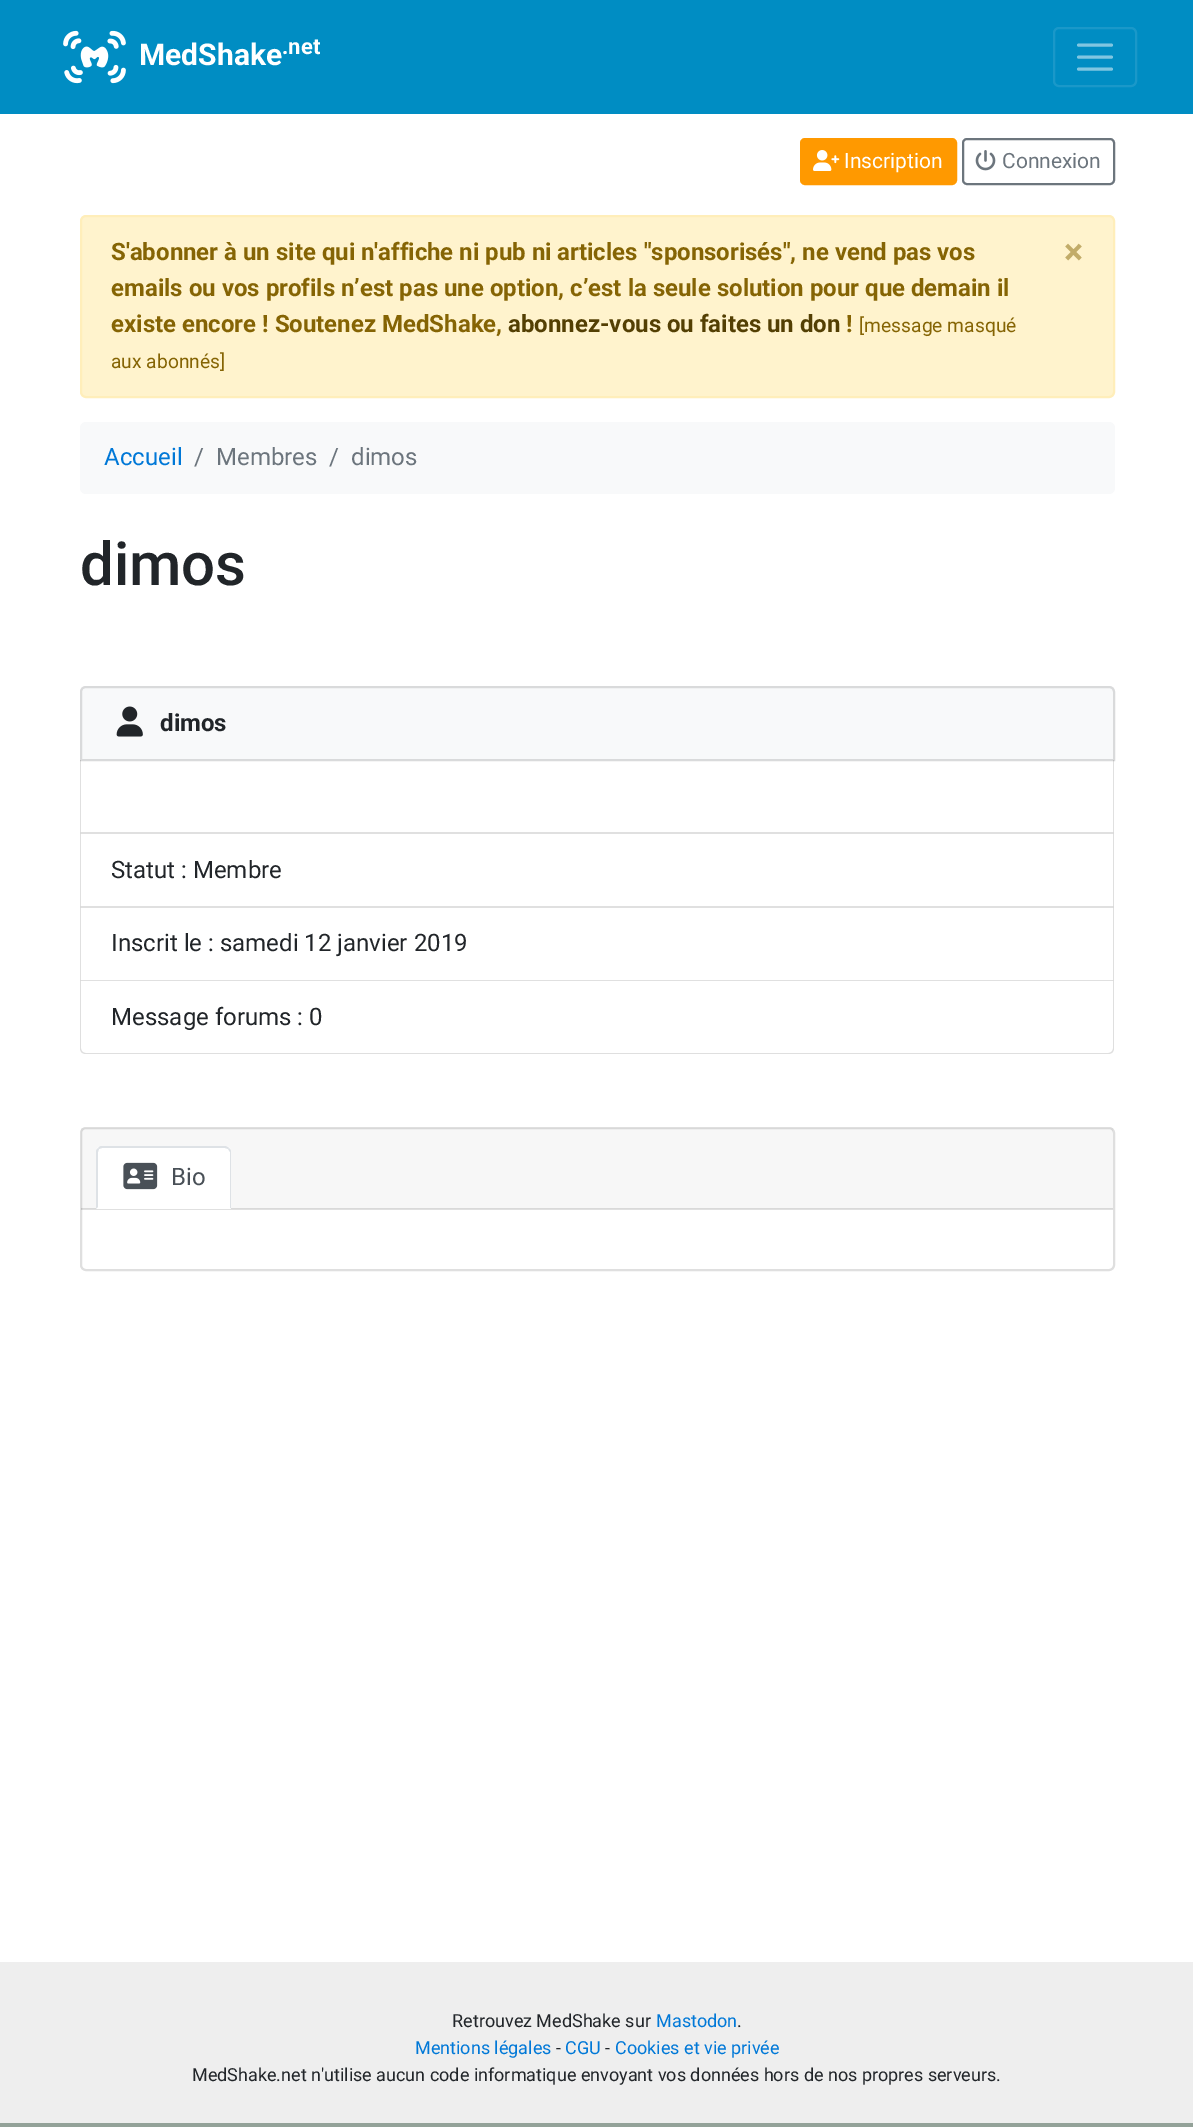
%!PS
<< /PageSize [1193 2127] /PageUsesTransparency true >> setpagedevice
/alpha { dup .setfillconstantalpha .setstrokeconstantalpha } def
/roundrect { 5 dict begin { /r /h /w /y /x } { exch def } forall
  x r add y moveto x w add y 2 copy h add r arct x w add y h add x 1 index r arct
  x y h add x y r arct x y 2 copy exch w add exch r arct closepath end } def
/picture { 5 dict begin { /h /w /y /x /name } { exch def } forall
  gsave x y translate w h scale
  w h 8 [w 0 0 h 0 0] name (r) file false 3 colorimage grestore end } def
0 .pushpdf14devicefilter
0 2127 translate 1 -1 scale
4 setmiterlimit
1 setgray
0 0 1193 2127 rectfill
0 0.553 0.765 setrgbcolor
0 0 1193 114 rectfill
(img1.rgb) 63 30 63 54 picture
/Roboto-Bold [30 0 0 -30 0 0] selectfont
1 setgray
139 65 moveto (MedShake) show
/Roboto-Bold [22 0 0 -22 0 0] selectfont
282 54 moveto (.net) show
0.102 0.596 0.788 setrgbcolor
2 setlinewidth
1054 28 82 58 5 roundrect stroke
0.502 0.776 0.882 setrgbcolor
3 setlinewidth
1 setlinecap
newpath 1078.5 45 moveto 1111.5 45 lineto 1078.5 57 moveto 1111.5 57 lineto 1078.5 69 moveto 1111.5 69 lineto stroke
1 0.6 0 setrgbcolor
801 139 155 45 4 roundrect gsave fill grestore
2 setlinewidth
0 setlinecap
stroke
(img2.rgb) 813 150 27 21 picture
/Roboto-Regular [21 0 0 -21 0 0] selectfont
1 setgray
844 168 moveto (Inscription) show
0.424 0.459 0.49 setrgbcolor
963 139 151 45 4 roundrect stroke
(img3.rgb) 975 150 21 21 picture
1002 168 moveto (Connexion) show
1 0.953 0.804 setrgbcolor
81 216 1033 181 5 roundrect gsave fill grestore
1 0.933 0.729 setrgbcolor
stroke
/Roboto-Bold [24 0 0 -24 0 0] selectfont
0.522 0.392 0.016 setrgbcolor
111 260 moveto (S'abonner à un site qui n'affiche ni pub ni articles "sponsorisés", ne vend pas vos) show
/Roboto-Bold [36 0 0 -36 0 0] selectfont
0.761 0.675 0.412 setrgbcolor
1064 264 moveto (×) show
/Roboto-Bold [24 0 0 -24 0 0] selectfont
0.522 0.392 0.016 setrgbcolor
111 296 moveto (emails ou vos profils n’est pas une option, c’est la seule solution pour que demain il) show
111 332 moveto (existe encore ! Soutenez MedShake,) show
0.325 0.247 0.012 setrgbcolor
508 332 moveto (abonnez-vous ou faites un don) show
0.522 0.392 0.016 setrgbcolor
846 332 moveto (!) show
/Roboto-Regular [19.25 0 0 -19.25 0 0] selectfont
859 332 moveto ([message masqué) show
111 368 moveto (aux abonnés]) show
0.973 0.976 0.98 setrgbcolor
80 422 1035 72 6 roundrect fill
/Roboto-Regular [24 0 0 -24 0 0] selectfont
0 0.471 0.843 setrgbcolor
104 465 moveto (Accueil) show
0.424 0.459 0.49 setrgbcolor
194 465 moveto (/) show
216 465 moveto (Membres) show
329 465 moveto (/) show
351 465 moveto (dimos) show
/Roboto-Medium [60 0 0 -60 0 0] selectfont
0.129 0.145 0.161 setrgbcolor
80 585 moveto (dimos) show
0.973 0.976 0.98 setrgbcolor
newpath 86 687 moveto 1109 687 lineto 1112 687 1114 689 1114 692 curveto 1114 760 lineto 81 760 lineto 81 692 lineto 81 689 83 687 86 687 curveto closepath gsave fill grestore
0.851 0.855 0.859 setrgbcolor
stroke
(img4.rgb) 116 706 27 31 picture
/Roboto-Bold [24 0 0 -24 0 0] selectfont
0.129 0.145 0.161 setrgbcolor
160 731 moveto (dimos) show
0.12 alpha
0 setgray
newpath 1114 760 moveto 1114 834 lineto 1113 832 lineto 1113 760 lineto closepath fill
newpath 1114 834 moveto 80 834 lineto 81 832 lineto 1113 832 lineto closepath fill
newpath 80 834 moveto 80 760 lineto 81 760 lineto 81 832 lineto closepath fill
1 alpha
0.875 setgray
newpath 1114 834 moveto 1114 908 lineto 1113 906 lineto 1113 834 lineto closepath fill
0.12 alpha
0 setgray
newpath 1114 908 moveto 80 908 lineto 81 906 lineto 1113 906 lineto closepath fill
newpath 80 908 moveto 80 834 lineto 81 834 lineto 81 906 lineto closepath fill
/Roboto-Regular [24 0 0 -24 0 0] selectfont
1 alpha
0.129 0.145 0.161 setrgbcolor
111 878 moveto (Statut : Membre) show
0.875 setgray
newpath 1114 908 moveto 1114 981 lineto 1113 980 lineto 1113 908 lineto closepath fill
0.12 alpha
0 setgray
newpath 1114 981 moveto 80 981 lineto 81 980 lineto 1113 980 lineto closepath fill
newpath 80 981 moveto 80 908 lineto 81 908 lineto 81 980 lineto closepath fill
1 alpha
0.129 0.145 0.161 setrgbcolor
111 951 moveto (Inscrit le : samedi 12 janvier 2019) show
0.875 setgray
newpath 80 981 moveto 1114 981 lineto 1114 1048 lineto 1114 1052 1112 1054 1108 1054 curveto 86 1054 lineto 82 1054 80 1052 80 1048 curveto closepath 81 981 moveto 1113 981 lineto 1113 1048 lineto 1113 1051 1111 1053 1108 1053 curveto 86 1053 lineto 83 1053 81 1051 81 1048 curveto closepath eofill
0.129 0.145 0.161 setrgbcolor
111 1025 moveto (Message forums : 0) show
0.875 setgray
81 1128 1033 142 5 roundrect stroke
0.03 alpha
0 setgray
81 1128 1032 81 rectfill
0.12 alpha
81 1208 1032 2 rectfill
1 alpha
1 setgray
newpath 102 1146 moveto 225 1146 lineto 228.5 1146 231 1148.5 231 1152 curveto 231 1209 lineto 96 1209 lineto 96 1152 lineto 96 1148.5 98.5 1146 102 1146 curveto closepath fill
0.871 0.886 0.902 setrgbcolor
newpath 102 1146 moveto 100 1146 99 1147 98 1148 curveto 99 1149 lineto 102 1148 lineto 225 1148 lineto 228 1149 lineto 229 1148 lineto 228 1147 226 1146 225 1146 curveto closepath fill
newpath 231 1209 moveto 231 1152 lineto 231 1150 230 1149 229 1148 curveto 228 1149 lineto 230 1152 lineto 230 1208 lineto closepath fill
1 setgray
newpath 231 1209 moveto 230 1208 lineto 98 1208 lineto 98 1207 lineto 96 1209 lineto closepath fill
0.871 0.886 0.902 setrgbcolor
newpath 96 1209 moveto 98 1207 lineto 98 1152 lineto 99 1149 lineto 98 1148 lineto 97 1149 96 1150 96 1152 curveto closepath fill
(img5.rgb) 123 1162 35 28 picture
0.286 0.314 0.341 setrgbcolor
171 1185 moveto (Bio) show
0.933 setgray
0 1962 1193 161 rectfill
0.576 0.635 0.6 setrgbcolor
0 2123 1193 4 rectfill
/Roboto-Regular [18 0 0 -18 0 0] selectfont
0.129 0.145 0.161 setrgbcolor
452 2027 moveto (Retrouvez MedShake sur) show
0 0.471 0.843 setrgbcolor
656 2027 moveto (Mastodon) show
0.129 0.145 0.161 setrgbcolor
737 2027 moveto (.) show
0 0.471 0.843 setrgbcolor
415 2054 moveto (Mentions légales) show
0.129 0.145 0.161 setrgbcolor
556 2054 moveto (-) show
0 0.471 0.843 setrgbcolor
565 2054 moveto (CGU) show
0.129 0.145 0.161 setrgbcolor
605 2054 moveto (-) show
0 0.471 0.843 setrgbcolor
615 2054 moveto (Cookies et vie privée) show
0.129 0.145 0.161 setrgbcolor
192 2081 moveto (MedShake.net n'utilise aucun code informatique envoyant vos données hors de nos propres serveurs.) show
.poppdf14devicefilter showpage
